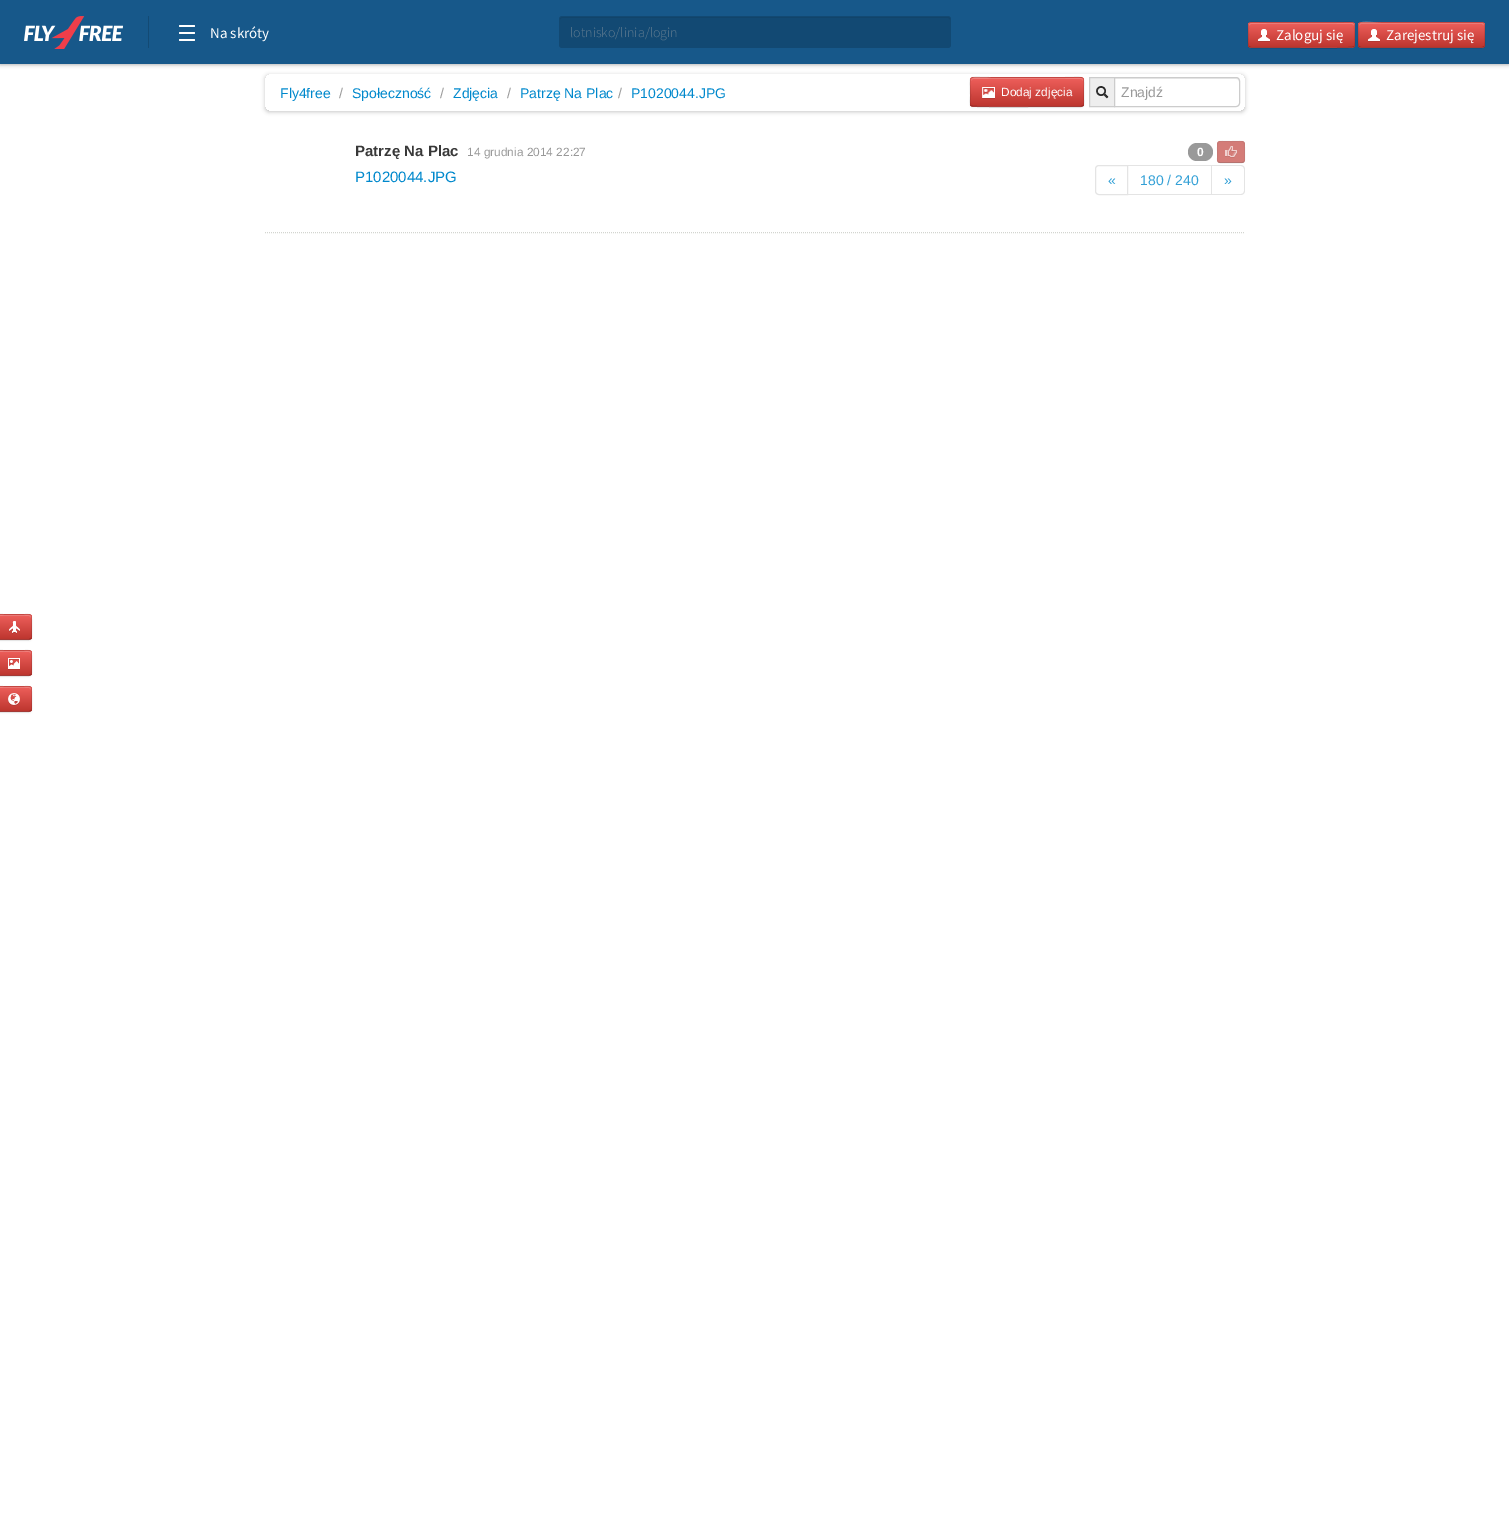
%!PS
<< /PageSize [1509 1536] /PageUsesTransparency true >> setpagedevice
/alpha { dup .setfillconstantalpha .setstrokeconstantalpha } def
/roundrect { 5 dict begin { /r /h /w /y /x } { exch def } forall
  x r add y moveto x w add y 2 copy h add r arct x w add y h add x 1 index r arct
  x y h add x y r arct x y 2 copy exch w add exch r arct closepath end } def
/shadow { 12 dict begin { /a /b /q /h /w /y /x } { exch def } forall gsave /was 0 def
  9 -2 -9 { dup b mul 4 div /e exch def 1 sub .425 mul 2.718 exch exp 1 add a .99 .min exch div /now exch def
    1 1 now sub 1 was sub div sub alpha /was now def
    w h .min e 2 mul add 0 gt { x e sub y e sub w e 2 mul add h e 2 mul add
      q e add b .6 mul add w h .min 2 div e add .min 0 .max roundrect fill } if } for grestore end } def
/picture { 5 dict begin { /h /w /y /x /name } { exch def } forall
  gsave x y translate w h scale
  w h 8 [w 0 0 h 0 0] name (r) file false 3 colorimage grestore end } def
0 .pushpdf14devicefilter
0 1536 translate 1 -1 scale
4 setmiterlimit
1 setgray
0 0 1509 1536 rectfill
0 setgray
0 0 1509 64 0 2.5 0.4 shadow
0.09 0.345 0.541 setrgbcolor
0 0 1509 64 rectfill
(img1.rgb) 24 16 99 33 picture
0.075 0.29 0.455 setrgbcolor
148 16 1 32 rectfill
1 setgray
179 39 16 2 1 roundrect fill
179 25 16 2 1 roundrect fill
179 32 16 2 1 roundrect fill
/SourceSansPro-Regular [15 0 0 -15 0 0] selectfont
210 38 moveto (Na skróty) show
0.071 0.286 0.451 setrgbcolor
559 16 392 32 3 roundrect fill
0.067 0.267 0.416 setrgbcolor
newpath 562 18 moveto 948 18 lineto 949 18 950 19 950 20 curveto 950 19 950 18 949 17 curveto 562 17 lineto 560 18 lineto 560 20 lineto 560 19 561 18 562 18 curveto closepath fill
/SourceSansPro-Light [14 0 0 -14 0 0] selectfont
0.369 0.478 0.561 setrgbcolor
570 37 moveto (lotnisko/linia/login) show
0.855 0.31 0.286 setrgbcolor
1248 22 107 26 3 roundrect fill
gsave
1248 22 107 26 3 roundrect clip newpath
gsave newpath 1248 23 moveto 1355 23 lineto 1355 47 lineto 1248 47 lineto closepath clip newpath
<< /ShadingType 2 /ColorSpace /DeviceRGB /Coords [1302 23 1302 47] /Extend [true true] /Function << /FunctionType 2 /Domain [0 1] /C0 [0.933 0.373 0.357] /C1 [0.741 0.212 0.184] /N 1 >> >> shfill grestore
grestore
0.945 0.494 0.482 setrgbcolor
newpath 1251 24 moveto 1352 24 lineto 1353 24 1354 25 1354 26 curveto 1354 25 1354 23 1352 23 curveto 1251 23 lineto 1249 23 1249 25 1249 26 curveto 1249 25 1250 24 1251 24 curveto closepath fill
0.25 alpha
0 setgray
newpath 1354 47 moveto 1353.5 47 lineto 1351.5 48.5 1276.5 47.5 1268 47.5 curveto 1251 47.5 lineto 1249 47 lineto stroke
0.1 alpha
newpath 1249 47 moveto 1247.5 45 1248.5 37.5 1248.5 35 curveto 1248.5 18 1247 22.5 1268 22.5 curveto 1335 22.5 lineto 1356 22.5 1354.5 18 1354.5 35 curveto 1354.5 37.5 1355.5 45 1354 47 curveto stroke
1 alpha
(img2.rgb) 1258 29 12 13 picture
/SourceSansPro-Regular [15 0 0 -15 0 0] selectfont
1 setgray
1276 40 moveto (Zaloguj się) show
0.855 0.31 0.286 setrgbcolor
1358 22 127 26 3 roundrect fill
gsave
1358 22 127 26 3 roundrect clip newpath
gsave newpath 1358 23 moveto 1485 23 lineto 1485 47 lineto 1358 47 lineto closepath clip newpath
<< /ShadingType 2 /ColorSpace /DeviceRGB /Coords [1422 23 1422 47] /Extend [true true] /Function << /FunctionType 2 /Domain [0 1] /C0 [0.933 0.373 0.357] /C1 [0.741 0.212 0.184] /N 1 >> >> shfill grestore
grestore
0.2 alpha
1 setgray
newpath 1361 24 moveto 1482 24 lineto 1484 25 lineto 1484 26 lineto 1484 25 1484 24 1483 23 curveto 1381 23 lineto 1375 23 1359 18 1359 26 curveto 1359 25 1360 24 1361 24 curveto closepath fill
0.25 alpha
0 setgray
newpath 1484 47 moveto 1482 47.5 lineto 1381 47.5 lineto 1361 47.5 lineto 1359 47 lineto stroke
0.1 alpha
newpath 1359 47 moveto 1357.5 45 1358.5 37.5 1358.5 35 curveto 1358.5 28.5 lineto 1358.5 26.5 1358 22.5 1361 22.5 curveto 1482 22.5 lineto 1485 22.5 1484.5 26.5 1484.5 28.5 curveto 1484.5 35 lineto 1484.5 37.5 1485.5 45 1484 47 curveto stroke
1 alpha
(img2.rgb) 1368 29 12 13 picture
1 setgray
1386 40 moveto (Zarejestruj się) show
gsave
newpath 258 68 moveto 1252 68 lineto 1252 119 lineto 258 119 lineto closepath 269 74 moveto 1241 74 lineto 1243 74 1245 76 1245 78 curveto 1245 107 lineto 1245 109 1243 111 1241 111 curveto 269 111 lineto 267 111 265 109 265 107 curveto 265 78 lineto 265 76 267 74 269 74 curveto closepath eoclip newpath
0 setgray
265 75 980 37 4 2 0.22 shadow
grestore
/LiberationSans-Regular [14 0 0 -14 0 0] selectfont
0 0.533 0.8 setrgbcolor
280 98 moveto (Fly4free) show
0.6 setgray
339 98 moveto (/) show
0 0.533 0.8 setrgbcolor
352 98 moveto (Społeczność) show
0.6 setgray
440 98 moveto (/) show
0 0.533 0.8 setrgbcolor
453 98 moveto (Zdjęcia) show
0.6 setgray
507 98 moveto (/) show
0 0.533 0.8 setrgbcolor
520 98 moveto (Patrzę Na Plac) show
0.6 setgray
618 98 moveto (/) show
0 0.533 0.8 setrgbcolor
631 98 moveto (P1020044.JPG) show
0 setgray
970 78 114 30 3 1 0.05 shadow
0.855 0.31 0.286 setrgbcolor
970 77 114 30 3 roundrect fill
gsave
970 77 114 30 3 roundrect clip newpath
gsave newpath 970 78 moveto 1084 78 lineto 1084 106 lineto 970 106 lineto closepath clip newpath
<< /ShadingType 2 /ColorSpace /DeviceRGB /Coords [1027 78 1027 106] /Extend [true true] /Function << /FunctionType 2 /Domain [0 1] /C0 [0.933 0.373 0.357] /C1 [0.741 0.212 0.184] /N 1 >> >> shfill grestore
grestore
0.2 alpha
1 setgray
newpath 973 79 moveto 1081 79 lineto 1082 79 1083 80 1083 81 curveto 1083 80 1083 78 1081 78 curveto 991 78 lineto 991 78 971 73 971 81 curveto 971 80 972 79 973 79 curveto closepath fill
0.25 alpha
0 setgray
newpath 1083 106 moveto 1081 106.5 lineto 1063 106.5 lineto 1054 106.5 973.5 107.5 971.5 106 curveto 971 106 lineto stroke
0.1 alpha
newpath 971 106 moveto 969.5 104 970.5 98 970.5 96 curveto 970.5 73 966 77.5 991 77.5 curveto 1063 77.5 lineto 1088 77.5 1083.5 73 1083.5 96 curveto 1083.5 98 1084.5 104 1083 106 curveto stroke
1 alpha
(img3.rgb) 982 87 13 12 picture
/LiberationSans-Regular [11.9 0 0 -11.9 0 0] selectfont
1 setgray
1001 96 moveto (Dodaj zdjęcia) show
0.933 setgray
newpath 1089.5 77.5 moveto 1114.5 77.5 lineto 1114.5 106.5 lineto 1089.5 106.5 lineto closepath gsave fill grestore
0.8 setgray
stroke
(img4.rgb) 1096 86 13 13 picture
1 setgray
newpath 1114 77 moveto 1236 77 lineto 1238 77 1240 79 1240 81 curveto 1240 103 lineto 1240 105 1238 107 1236 107 curveto 1114 107 lineto closepath fill
0.925 setgray
newpath 1115 79 moveto 1236 79 lineto 1238 79 1239 80 1239 82 curveto 1239 81 lineto 1239 79 1238 78 1236 78 curveto 1115 78 lineto closepath fill
0.8 setgray
newpath 1114.5 77.5 moveto 1236 77.5 lineto 1238 77.5 1239.5 79 1239.5 81 curveto 1239.5 103 lineto 1239.5 105 1238 106.5 1236 106.5 curveto 1114.5 106.5 lineto closepath stroke
/LiberationSans-Regular [14 0 0 -14 0 0] selectfont
0.6 setgray
1121 97 moveto (Znajdź) show
0.827 0.835 0.816 setrgbcolor
[1 1] 0 setdash
newpath 265 232.5 moveto 1245 232.5 lineto stroke
/LiberationSans-Bold [15 0 0 -15 0 0] selectfont
0.22 setgray
355 156 moveto (Patrzę Na Plac) show
/LiberationSans-Regular [11.9 0 0 -11.9 0 0] selectfont
0.6 setgray
467 156 moveto (14 grudnia 2014 22:27) show
1188 143 25 18 9 roundrect fill
/LiberationSans-Bold [12 0 0 -12 0 0] selectfont
1 setgray
1197 156 moveto (0) show
0.831 0.486 0.471 setrgbcolor
1217 141 28 22 3 roundrect fill
0.25 alpha
0.349 setgray
[] 0 setdash
newpath 1244 162 moveto 1243.5 162 1242.5 162.5 1242 162.5 curveto 1220 162.5 lineto 1219.5 162.5 1218.5 162 1218 162 curveto stroke
0.1 alpha
newpath 1218 162 moveto 1217 160.5 1217.5 158.5 1217.5 157.5 curveto 1217.5 152 lineto 1217.5 138.5 1216.5 141.5 1231 141.5 curveto 1245.5 141.5 1244.5 138.5 1244.5 152 curveto 1244.5 157.5 lineto 1244.5 158.5 1245 160.5 1244 162 curveto stroke
1 alpha
(img5.rgb) 1225 146 12 12 picture
/LiberationSans-Regular [15 0 0 -15 0 0] selectfont
0 0.533 0.8 setrgbcolor
355 182 moveto (P1020044.JPG) show
0.894 setgray
newpath 1099 165.5 moveto 1127.5 165.5 lineto 1127.5 194.5 lineto 1099 194.5 lineto 1097 194.5 1095.5 193 1095.5 191 curveto 1095.5 169 lineto 1095.5 167 1097 165.5 1099 165.5 curveto closepath stroke
/LiberationSans-Regular [14 0 0 -14 0 0] selectfont
0.2 0.627 0.839 setrgbcolor
1108 185 moveto («) show
0.894 setgray
1128 165 84 1 rectfill
1211 165 1 30 rectfill
1128 194 84 1 rectfill
0.2 0.627 0.839 setrgbcolor
1140 185 moveto (180 / 240) show
0.894 setgray
newpath 1212 165 moveto 1241 165 lineto 1243 165 1245 167 1245 169 curveto 1245 191 lineto 1245 193 1243 195 1241 195 curveto 1212 195 lineto closepath 1212 166 moveto 1241 166 lineto 1242.5 166 1244 167.5 1244 169 curveto 1244 191 lineto 1244 192.5 1242.5 194 1241 194 curveto 1212 194 lineto closepath eofill
0.2 0.627 0.839 setrgbcolor
1224 185 moveto (») show
0 setgray
-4 615 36 26 3 1 0.05 shadow
0.855 0.31 0.286 setrgbcolor
-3 614 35 26 3 roundrect fill
gsave
-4 614 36 26 3 roundrect clip newpath
gsave newpath 0 615 moveto 32 615 lineto 32 639 lineto 0 639 lineto closepath clip newpath
<< /ShadingType 2 /ColorSpace /DeviceRGB /Coords [14 615 14 639] /Extend [true true] /Function << /FunctionType 2 /Domain [0 1] /C0 [0.933 0.373 0.357] /C1 [0.741 0.212 0.184] /N 1 >> >> shfill grestore
grestore
0.945 0.494 0.482 setrgbcolor
newpath -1 616 moveto 29 616 lineto 30 616 31 617 31 618 curveto 31 613.5 28 615 24 615 curveto 4 615 lineto 0 615 -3 613.5 -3 618 curveto -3 617 -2 616 -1 616 curveto closepath fill
0.25 alpha
0 setgray
newpath 31 639 moveto 30.5 639 29.5 639.5 29 639.5 curveto -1 639.5 lineto -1.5 639.5 -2.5 639 -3 639 curveto stroke
0.1 alpha
newpath -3 639 moveto -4 637.5 -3.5 635 -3.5 633.5 curveto -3.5 620.5 lineto -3.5 613.5 -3 614.5 4 614.5 curveto 24 614.5 lineto 31 614.5 31.5 613.5 31.5 620.5 curveto 31.5 633.5 lineto 31.5 635 32 637.5 31 639 curveto stroke
1 alpha
(img6.rgb) 9 621 11 13 picture
-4 651 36 26 3 1 0.05 shadow
0.855 0.31 0.286 setrgbcolor
-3 650 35 26 3 roundrect fill
gsave
-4 650 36 26 3 roundrect clip newpath
gsave newpath 0 651 moveto 32 651 lineto 32 675 lineto 0 675 lineto closepath clip newpath
<< /ShadingType 2 /ColorSpace /DeviceRGB /Coords [14 651 14 675] /Extend [true true] /Function << /FunctionType 2 /Domain [0 1] /C0 [0.933 0.373 0.357] /C1 [0.741 0.212 0.184] /N 1 >> >> shfill grestore
grestore
0.945 0.494 0.482 setrgbcolor
newpath -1 652 moveto 29 652 lineto 30 652 31 653 31 654 curveto 31 649.5 28 651 24 651 curveto 4 651 lineto 0 651 -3 649.5 -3 654 curveto -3 653 -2 652 -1 652 curveto closepath fill
0.25 alpha
0 setgray
newpath 31 675 moveto 30.5 675 29.5 675.5 29 675.5 curveto -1 675.5 lineto -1.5 675.5 -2.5 675 -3 675 curveto stroke
0.1 alpha
newpath -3 675 moveto -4 673.5 -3.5 671 -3.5 669.5 curveto -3.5 656.5 lineto -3.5 649.5 -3 650.5 4 650.5 curveto 24 650.5 lineto 31 650.5 31.5 649.5 31.5 656.5 curveto 31.5 669.5 lineto 31.5 671 32 673.5 31 675 curveto stroke
1 alpha
(img7.rgb) 8 658 12 12 picture
-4 687 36 26 3 1 0.05 shadow
0.855 0.31 0.286 setrgbcolor
-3 686 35 26 3 roundrect fill
gsave
-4 686 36 26 3 roundrect clip newpath
gsave newpath 0 687 moveto 32 687 lineto 32 711 lineto 0 711 lineto closepath clip newpath
<< /ShadingType 2 /ColorSpace /DeviceRGB /Coords [14 687 14 711] /Extend [true true] /Function << /FunctionType 2 /Domain [0 1] /C0 [0.933 0.373 0.357] /C1 [0.741 0.212 0.184] /N 1 >> >> shfill grestore
grestore
0.945 0.494 0.482 setrgbcolor
newpath -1 688 moveto 29 688 lineto 30 688 31 689 31 690 curveto 31 685.5 28 687 24 687 curveto 4 687 lineto 0 687 -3 685.5 -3 690 curveto -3 689 -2 688 -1 688 curveto closepath fill
0.25 alpha
0 setgray
newpath 31 711 moveto 30.5 711 29.5 711.5 29 711.5 curveto -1 711.5 lineto -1.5 711.5 -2.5 711 -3 711 curveto stroke
0.1 alpha
newpath -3 711 moveto -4 709.5 -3.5 707 -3.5 705.5 curveto -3.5 692.5 lineto -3.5 685.5 -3 686.5 4 686.5 curveto 24 686.5 lineto 31 686.5 31.5 685.5 31.5 692.5 curveto 31.5 705.5 lineto 31.5 707 32 709.5 31 711 curveto stroke
1 alpha
(img8.rgb) 8 693 12 13 picture
.poppdf14devicefilter showpage
